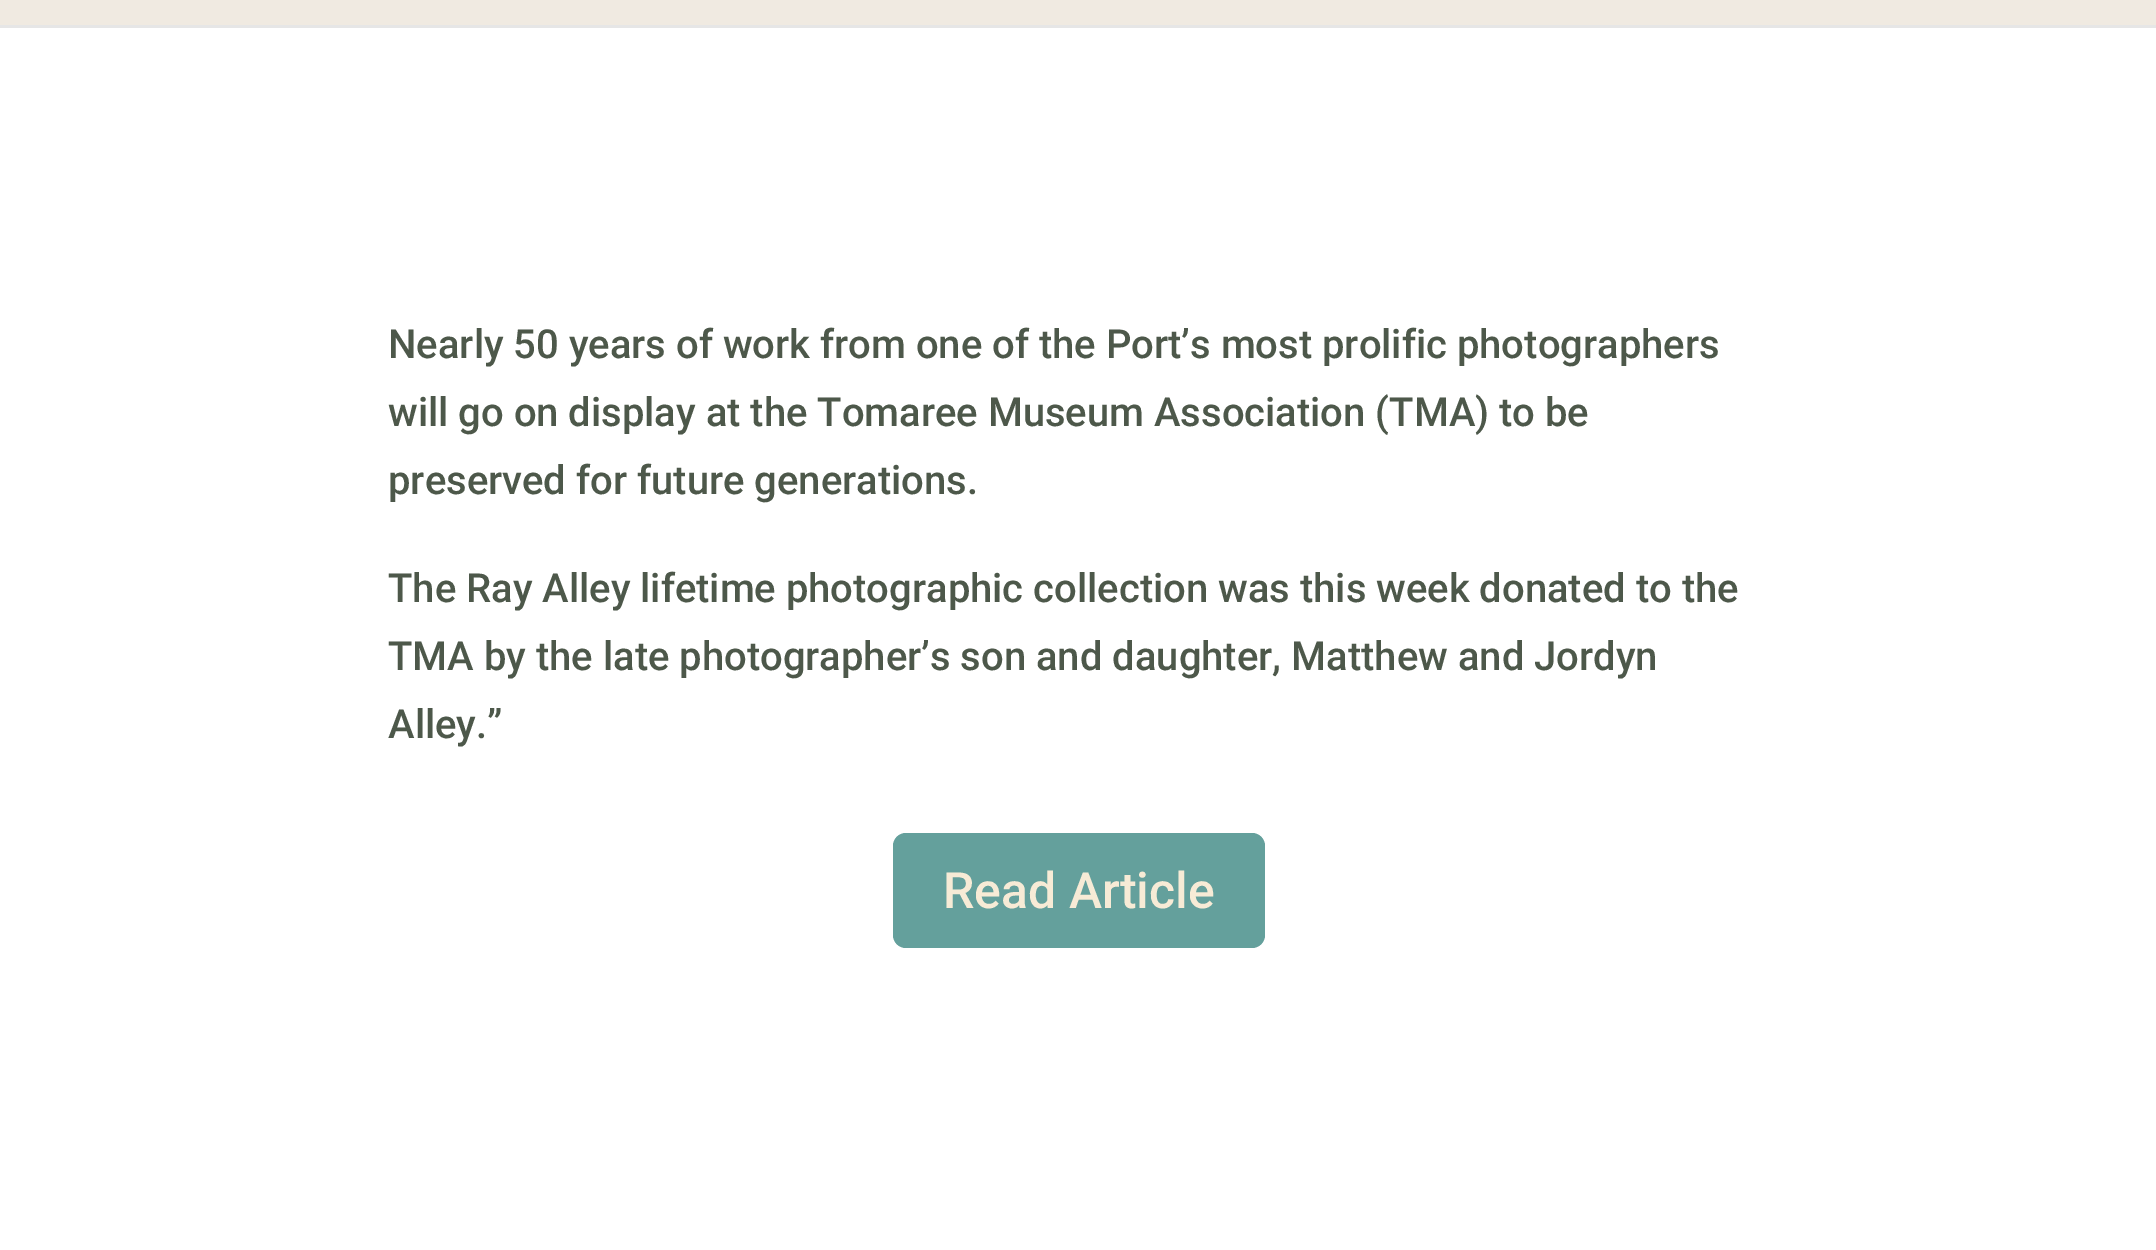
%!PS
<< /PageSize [2156 1250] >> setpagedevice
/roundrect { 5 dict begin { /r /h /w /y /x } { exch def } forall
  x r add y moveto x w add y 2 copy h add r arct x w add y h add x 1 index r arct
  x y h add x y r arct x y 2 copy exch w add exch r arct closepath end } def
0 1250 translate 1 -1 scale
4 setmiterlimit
1 setgray
0 0 2156 1250 rectfill
0.902 setgray
newpath 0 25 moveto 0 28 lineto 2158 28 lineto 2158 -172 lineto 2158 25 lineto closepath fill
0.941 0.918 0.882 setrgbcolor
0 0 2156 25 rectfill
/Roboto-Medium [40 0 0 -40 0 0] selectfont
0.302 0.345 0.29 setrgbcolor
388 358 moveto (Nearly 50 years of work from one of the Port’s most prolific photographers) show
388 426 moveto (will go on display at the Tomaree Museum Association \(TMA\) to be) show
388 494 moveto (preserved for future generations.) show
388 602 moveto (The Ray Alley lifetime photographic collection was this week donated to the) show
388 670 moveto (TMA by the late photographer’s son and daughter, Matthew and Jordyn) show
388 738 moveto (Alley.”) show
0.392 0.627 0.612 setrgbcolor
893 833 372 115 13 roundrect fill
/Roboto-Medium [50 0 0 -50 0 0] selectfont
0.969 0.922 0.839 setrgbcolor
943 908 moveto (Read Article) show
showpage
